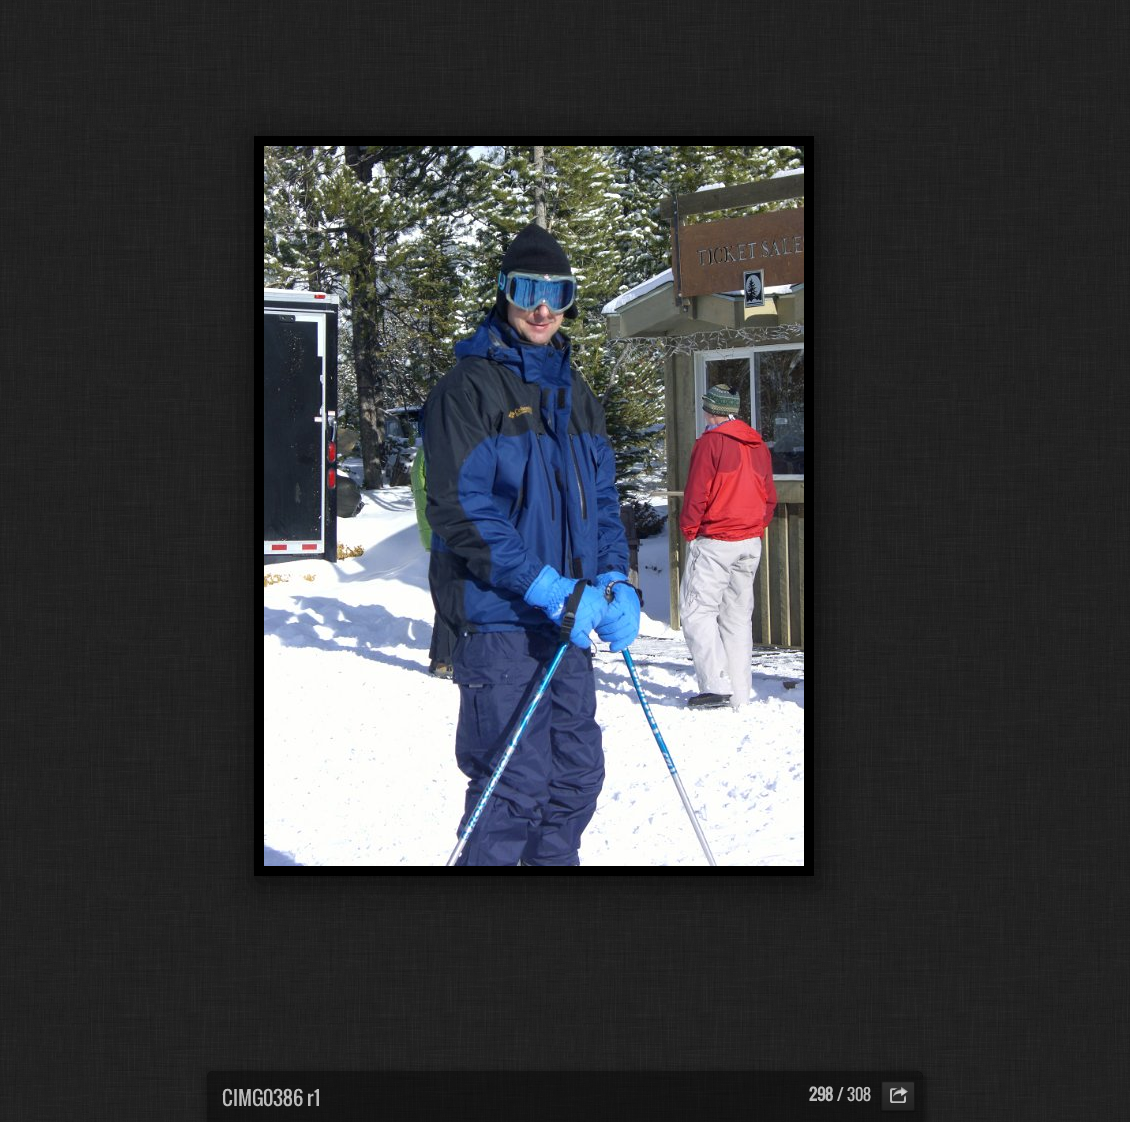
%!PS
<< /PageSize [1130 1122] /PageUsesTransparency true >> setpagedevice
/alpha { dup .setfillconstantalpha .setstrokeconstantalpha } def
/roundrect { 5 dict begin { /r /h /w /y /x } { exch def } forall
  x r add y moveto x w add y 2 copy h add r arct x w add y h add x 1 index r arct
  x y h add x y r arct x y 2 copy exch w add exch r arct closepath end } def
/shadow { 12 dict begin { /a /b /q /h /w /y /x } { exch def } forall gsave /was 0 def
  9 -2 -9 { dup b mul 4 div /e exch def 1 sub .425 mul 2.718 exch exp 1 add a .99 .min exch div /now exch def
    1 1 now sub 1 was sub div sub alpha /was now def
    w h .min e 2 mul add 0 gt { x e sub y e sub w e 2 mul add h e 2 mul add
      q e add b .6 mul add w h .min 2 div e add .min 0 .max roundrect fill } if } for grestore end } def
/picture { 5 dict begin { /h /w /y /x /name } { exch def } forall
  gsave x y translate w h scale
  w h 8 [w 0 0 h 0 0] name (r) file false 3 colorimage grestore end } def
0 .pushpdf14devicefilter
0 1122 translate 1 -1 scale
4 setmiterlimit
0.133 setgray
0 0 1130 1122 rectfill
(img1.rgb) 0 0 1130 1122 picture
0 setgray
257 142 560 740 0 16 0.6 shadow
254 136 560 740 rectfill
(img2.rgb) 264 146 540 720 picture
gsave
newpath 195 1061 moveto 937 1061 lineto 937 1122 lineto 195 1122 lineto closepath 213 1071 moveto 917 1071 lineto 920.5 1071 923 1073.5 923 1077 curveto 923 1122 lineto 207 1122 lineto 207 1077 lineto 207 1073.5 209.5 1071 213 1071 curveto closepath eoclip newpath
208 1074 716 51 6 4 0.6 shadow
grestore
0.4 alpha
newpath 213 1071 moveto 917 1071 lineto 920.5 1071 923 1073.5 923 1077 curveto 923 1122 lineto 207 1122 lineto 207 1077 lineto 207 1073.5 209.5 1071 213 1071 curveto closepath fill
/Oswald-Regular [19.5 0 0 -19.5 0 0] selectfont
1 alpha
0.733 setgray
222 1106 moveto (CIMG0386 r1) show
/Oswald-Bold [16 0 0 -16 0 0] selectfont
809 1101 moveto (298) show
/Oswald-Regular [16 0 0 -16 0 0] selectfont
837 1101 moveto (/ 308) show
0 setgray
881 1082 34 30 2 1 0.6 shadow
gsave 882 1082 32 28 1 roundrect clip newpath
<< /ShadingType 2 /ColorSpace /DeviceRGB /Coords [898 1082 898 1110] /Extend [true true] /Function << /FunctionType 2 /Domain [0 1] /C0 [0.2 0.2 0.2] /C1 [0.133 0.133 0.133] /N 1 >> >> shfill grestore
0.094 setgray
881.5 1081.5 33 29 1.5 roundrect stroke
(img3.rgb) 890 1086 18 17 picture
.poppdf14devicefilter showpage
